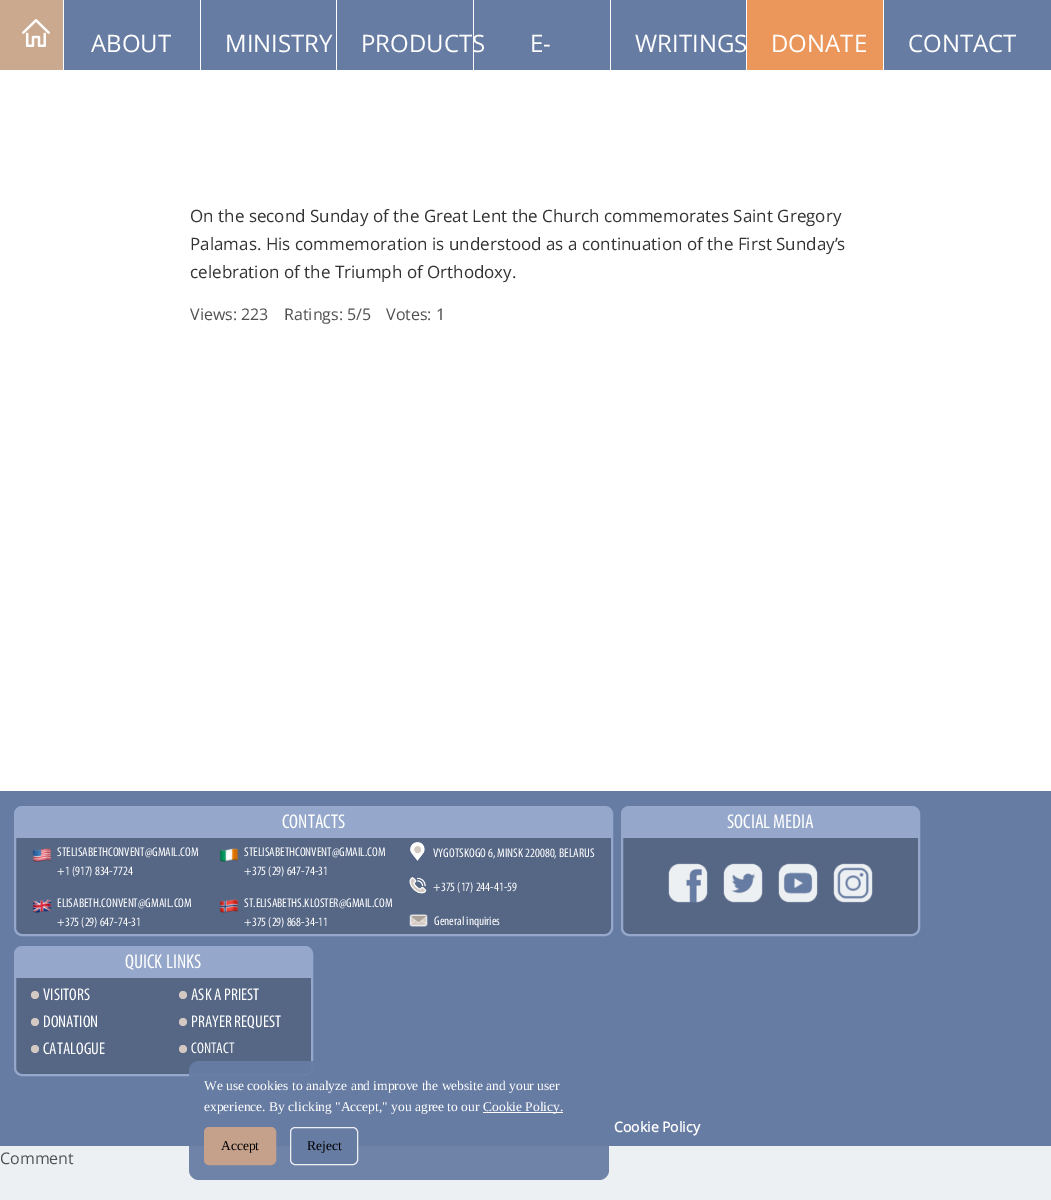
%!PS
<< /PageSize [1051 1200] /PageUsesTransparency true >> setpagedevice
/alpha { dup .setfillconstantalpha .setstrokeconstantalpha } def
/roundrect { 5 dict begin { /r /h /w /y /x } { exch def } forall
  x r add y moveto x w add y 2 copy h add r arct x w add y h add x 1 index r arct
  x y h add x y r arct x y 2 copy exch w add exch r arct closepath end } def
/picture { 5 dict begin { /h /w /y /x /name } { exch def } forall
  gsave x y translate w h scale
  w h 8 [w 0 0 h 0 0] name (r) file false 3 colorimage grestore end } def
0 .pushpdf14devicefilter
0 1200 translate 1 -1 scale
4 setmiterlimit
0.929 0.941 0.953 setrgbcolor
0 0 1051 1200 rectfill
0.404 0.486 0.639 setrgbcolor
64 0 987 70 rectfill
0.796 0.663 0.561 setrgbcolor
0 0 63 70 rectfill
(img1.rgb) 22 19 28 28 picture
1 setgray
63 0 1 70 rectfill
/OpenSans-Regular [24 0 0 -24 0 0] selectfont
91 52 moveto (ABOUT) show
200 0 1 70 rectfill
225 52 moveto (MINISTRY) show
336 0 1 70 rectfill
361 52 moveto (PRODUCTS) show
473 0 1 70 rectfill
530 52 moveto (E-) show
610 0 1 70 rectfill
635 52 moveto (WRITINGS) show
0.922 0.592 0.357 setrgbcolor
747 0 136 70 rectfill
1 setgray
746 0 1 70 rectfill
771 52 moveto (DONATE) show
883 0 1 70 rectfill
908 52 moveto (CONTACT) show
0.404 0.486 0.639 setrgbcolor
0 791 1051 355 rectfill
0.337 0.404 0.525 setrgbcolor
15 947 297 128 7 roundrect gsave fill grestore
0.584 0.659 0.796 setrgbcolor
2 setlinewidth
stroke
0.94 alpha
0.404 0.486 0.639 setrgbcolor
189 1061 420 119 10 roundrect fill
/LiberationSerif-Regular [13.5 0 0 -13.5 0 0] selectfont
1 alpha
1 setgray
204 1090 moveto (We use cookies to analyze and improve the website and your user) show
204 1111 moveto (experience. By clicking "Accept," you agree to our) show
483 1112 80 1 rectfill
483 1111 moveto (Cookie Policy.) show
0.773 0.631 0.549 setrgbcolor
204.5 1127.5 71 37 4.5 roundrect gsave fill grestore
1 setlinewidth
stroke
0 setgray
221 1150 moveto (Accept) show
0.94 alpha
0.404 0.486 0.639 setrgbcolor
290.5 1127.5 67 37 4.5 roundrect fill
1 alpha
0.929 0.941 0.953 setrgbcolor
290.5 1127.5 67 37 4.5 roundrect stroke
0 setgray
307 1150 moveto (Reject) show
1 setgray
0 70 1051 721 rectfill
/OpenSans-Regular [17 0 0 -17 0 0] selectfont
0.2 setgray
190 222 moveto (On the second Sunday of the Great Lent the Church commemorates Saint Gregory) show
190 250 moveto (Palamas. His commemoration is understood as a continuation of the First Sunday’s) show
190 278 moveto (celebration of the Triumph of Orthodoxy.) show
/OpenSans-Regular [16 0 0 -16 0 0] selectfont
0.31 setgray
190 320 moveto (Views: 223) show
284 320 moveto (Ratings: 5/5) show
386 320 moveto (Votes: 1) show
0.337 0.404 0.525 setrgbcolor
15 807 597 128 7 roundrect gsave fill grestore
0.584 0.659 0.796 setrgbcolor
2 setlinewidth
stroke
newpath 20 808 moveto 607 808 lineto 609 808 611 810 611 812 curveto 611 838 lineto 16 838 lineto 16 812 lineto 16 810 18 808 20 808 curveto closepath fill
/Myriad-Regular [20 0 0 -20 0 0] selectfont
1 setgray
282 828 moveto (CONTACTS) show
(img2.rgb) 32 848 20 14 picture
/Myriad-Regular [12.75 0 0 -12.75 0 0] selectfont
57 856 moveto (STELISABETHCONVENT@GMAIL.COM) show
57 875 moveto (+1 \(917\) 834-7724) show
(img3.rgb) 219 848 20 14 picture
244 856 moveto (STELISABETHCONVENT@GMAIL.COM) show
244 875 moveto (+375 \(29\) 647-74-31) show
(img4.rgb) 32 899 20 14 picture
57 907 moveto (ELISABETH.CONVENT@GMAIL.COM) show
57 926 moveto (+375 \(29\) 647-74-31) show
(img5.rgb) 219 899 20 14 picture
244 907 moveto (ST.ELISABETHS.KLOSTER@GMAIL.COM) show
244 926 moveto (+375 \(29\) 868-34-11) show
(img6.rgb) 410 842 15 19 picture
433 857 moveto (VYGOTSKOGO 6, MINSK 220080, BELARUS) show
(img7.rgb) 409 877 18 17 picture
433 891 moveto (+375 \(17\) 244-41-59) show
(img8.rgb) 409 914 19 13 picture
434 925 moveto (General inquiries) show
0.337 0.404 0.525 setrgbcolor
622 807 297 128 7 roundrect gsave fill grestore
0.584 0.659 0.796 setrgbcolor
stroke
newpath 627 808 moveto 914 808 lineto 916 808 918 810 918 812 curveto 918 838 lineto 623 838 lineto 623 812 lineto 623 810 625 808 627 808 curveto closepath fill
/Myriad-Regular [20 0 0 -20 0 0] selectfont
1 setgray
727 828 moveto (SOCIAL MEDIA) show
(img9.rgb) 668 863 40 40 picture
(img10.rgb) 723 863 40 40 picture
(img11.rgb) 778 863 40 40 picture
(img12.rgb) 833 863 40 40 picture
0.584 0.659 0.796 setrgbcolor
newpath 20 948 moveto 307 948 lineto 309 948 311 950 311 952 curveto 311 978 lineto 16 978 lineto 16 952 lineto 16 950 18 948 20 948 curveto closepath fill
1 setgray
125 968 moveto (QUICK LINKS) show
0.827 0.788 0.761 setrgbcolor
newpath 35 995 4 0 360 arc closepath fill
/Myriad-Regular [17 0 0 -17 0 0] selectfont
1 setgray
43 1000 moveto (VISITORS) show
0.827 0.788 0.761 setrgbcolor
newpath 35 1022 4 0 360 arc closepath fill
1 setgray
43 1027 moveto (DONATION) show
0.827 0.788 0.761 setrgbcolor
newpath 35 1049 4 0 360 arc closepath fill
1 setgray
43 1054 moveto (CATALOGUE) show
0.827 0.788 0.761 setrgbcolor
newpath 183 995 4 0 360 arc closepath fill
1 setgray
191 1000 moveto (ASK A PRIEST) show
0.827 0.788 0.761 setrgbcolor
newpath 183 1022 4 0 360 arc closepath fill
1 setgray
191 1027 moveto (PRAYER REQUEST) show
0.827 0.788 0.761 setrgbcolor
newpath 183 1049 4 0 360 arc closepath fill
/Myriad-Regular [15.5 0 0 -15.5 0 0] selectfont
1 setgray
191 1053 moveto (CONTACT) show
/OpenSans-Bold [14 0 0 -14 0 0] selectfont
614 1132 moveto (Cookie Policy) show
/OpenSans-Regular [16 0 0 -16 0 0] selectfont
0.31 setgray
0 1164 moveto (Comment) show
.poppdf14devicefilter showpage
